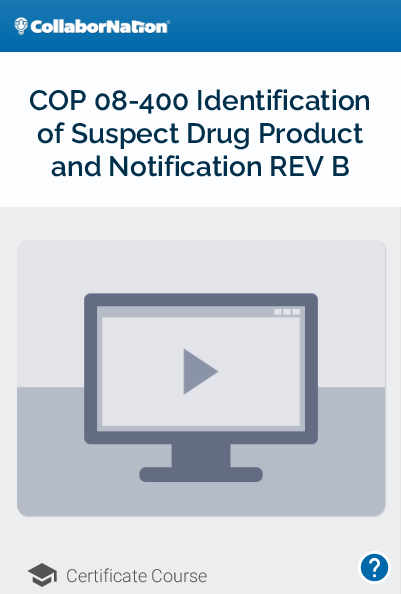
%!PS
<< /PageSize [401 594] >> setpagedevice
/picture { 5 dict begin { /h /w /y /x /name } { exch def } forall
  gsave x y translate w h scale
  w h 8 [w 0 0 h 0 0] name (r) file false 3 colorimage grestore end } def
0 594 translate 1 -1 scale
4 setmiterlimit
0.984 0.992 1 setrgbcolor
0 0 401 594 rectfill
gsave newpath 0 0 moveto 401 0 lineto 401 52 lineto 0 52 lineto closepath clip newpath
<< /ShadingType 2 /ColorSpace /DeviceRGB /Coords [201 0 201 52] /Extend [true true] /Function << /FunctionType 2 /Domain [0 1] /C0 [0.102 0.471 0.702] /C1 [0 0.412 0.667] /N 1 >> >> shfill grestore
(img1.rgb) 13 17 158 19 picture
/Raleway-SemiBold [28 0 0 -28 0 0] selectfont
0 0.184 0.298 setrgbcolor
29 110 moveto (COP 08-400 Identification) show
37 143 moveto (of Suspect Drug Product) show
51 176 moveto (and Notification REV B) show
0.922 0.929 0.937 setrgbcolor
0 207 400 387 rectfill
0.886 0.894 0.902 setrgbcolor
400 207 1 387 rectfill
0.827 0.835 0.843 setrgbcolor
newpath 382 243 moveto 384.5 245 385.5 248 385.5 251 curveto 385.5 505 lineto 385.5 508 384.5 511 382 513 curveto 380 515.5 377 516.5 374 516.5 curveto 28 516.5 lineto 25 516.5 22 515.5 20 513 curveto stroke
(img2.rgb) 17 240 368 276 picture
(img3.rgb) 27 563 30 24 picture
/Roboto-Light [18 0 0 -18 0 0] selectfont
0.322 0.329 0.337 setrgbcolor
66 582 moveto (Certificate Course) show
1 setgray
newpath 374.5 567.5 16.5 0 360 arc closepath fill
(img4.rgb) 360 553 29 29 picture
showpage
